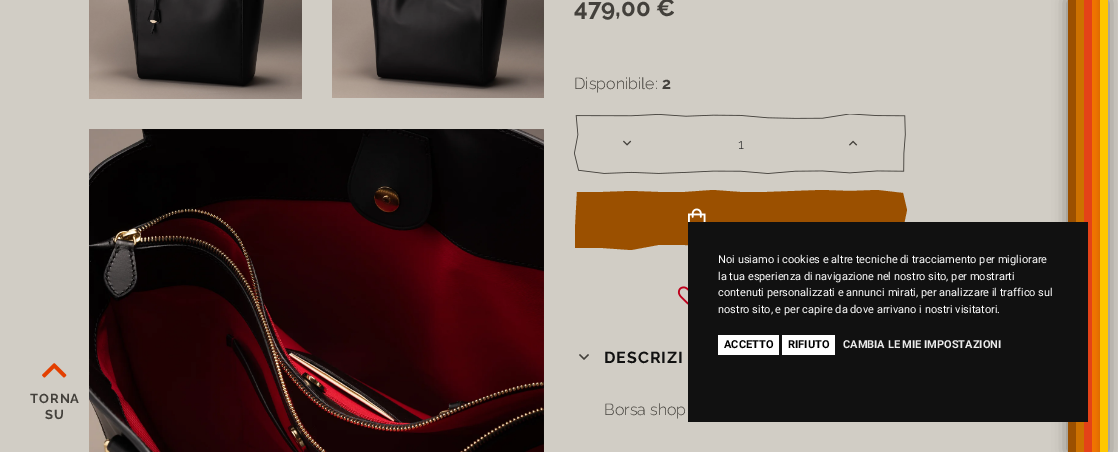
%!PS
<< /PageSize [1118 452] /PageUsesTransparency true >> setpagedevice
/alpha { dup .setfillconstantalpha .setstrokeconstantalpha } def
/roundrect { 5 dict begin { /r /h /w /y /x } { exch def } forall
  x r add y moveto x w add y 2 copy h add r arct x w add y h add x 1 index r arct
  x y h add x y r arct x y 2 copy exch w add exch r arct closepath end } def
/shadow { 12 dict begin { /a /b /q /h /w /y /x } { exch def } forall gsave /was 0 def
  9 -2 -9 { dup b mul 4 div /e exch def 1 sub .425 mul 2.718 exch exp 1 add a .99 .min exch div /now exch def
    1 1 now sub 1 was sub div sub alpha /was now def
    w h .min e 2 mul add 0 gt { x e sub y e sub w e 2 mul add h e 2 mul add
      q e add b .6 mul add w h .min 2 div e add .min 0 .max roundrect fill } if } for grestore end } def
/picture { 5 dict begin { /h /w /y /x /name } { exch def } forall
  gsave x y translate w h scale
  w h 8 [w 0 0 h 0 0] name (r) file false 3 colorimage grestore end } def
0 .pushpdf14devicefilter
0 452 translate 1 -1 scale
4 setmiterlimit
0.82 0.804 0.773 setrgbcolor
0 0 1118 452 rectfill
(img1.rgb) 42 363 25 15 picture
/Raleway-Bold [13 0 0 -13 0 0] selectfont
0.263 0.251 0.231 setrgbcolor
30 403 moveto 1 0 (TORNA) ashow
45 419 moveto 1 0 (SU) ashow
(img2.rgb) 89 0 213 99 picture
(img3.rgb) 332 0 212 98 picture
(img4.rgb) 89 129 455 323 picture
/Raleway-Bold [24 0 0 -24 0 0] selectfont
574 16 moveto (479,00 €) show
/Raleway-Light [16 0 0 -16 0 0] selectfont
574 89 moveto (Disponibile:) show
/Raleway-Bold [16 0 0 -16 0 0] selectfont
662 89 moveto (2) show
(img5.rgb) 574 114 332 60 picture
(img6.rgb) 623 140 9 6 picture
/Raleway-Light [14 0 0 -14 0 0] selectfont
0.2 setgray
738 149 moveto (1) show
(img7.rgb) 849 140 9 6 picture
0.608 0.314 0 setrgbcolor
newpath 905 248 moveto 850 248 lineto 822 249 lineto 795 247 lineto 768 248 lineto 740 248 lineto 713 246 lineto 685 245 lineto 658 245 lineto 631 250 lineto 603 248 lineto 575 248 lineto 575 229 lineto 576 210 lineto 577 192 lineto 603 192 lineto 631 191 lineto 658 192 lineto 685 192 lineto 713 190 lineto 740 192 lineto 767 192 lineto 822 190 lineto 850 191 lineto 877 190 lineto 903 193 lineto 907 210 lineto 903 229 lineto closepath fill
(img8.rgb) 688 208 18 14 picture
(img9.rgb) 677 286 11 19 picture
(img10.rgb) 579 354 10 6 picture
/Raleway-Bold [16 0 0 -16 0 0] selectfont
0.067 setgray
604 363 moveto 1 0 (DESCRIZI) ashow
/Raleway-Light [16 0 0 -16 0 0] selectfont
0.263 0.251 0.231 setrgbcolor
604 415 moveto (Borsa shop) show
0 setgray
1068 0 40 452 0 7.5 0.4 shadow
(img11.rgb) 1068 0 40 452 picture
0.067 setgray
688 222 400 200 rectfill
/Roboto-Regular [11 0 0 -11 0 0] selectfont
1 setgray
718 263 moveto (Noi usiamo i cookies e altre tecniche di tracciamento per migliorare) show
718 280 moveto (la tua esperienza di navigazione nel nostro sito, per mostrarti) show
718 296 moveto (contenuti personalizzati e annunci mirati, per analizzare il traffico sul) show
718 313 moveto (nostro sito, e per capire da dove arrivano i nostri visitatori.) show
718 335 61 20 rectfill
/Roboto-Bold [11 0 0 -11 0 0] selectfont
0 setgray
724 348 moveto (ACCETTO) show
1 setgray
782 335 53 20 rectfill
0 setgray
788 348 moveto (RIFIUTO) show
0.918 setgray
843 348 moveto (CAMBIA LE MIE IMPOSTAZIONI) show
.poppdf14devicefilter showpage
